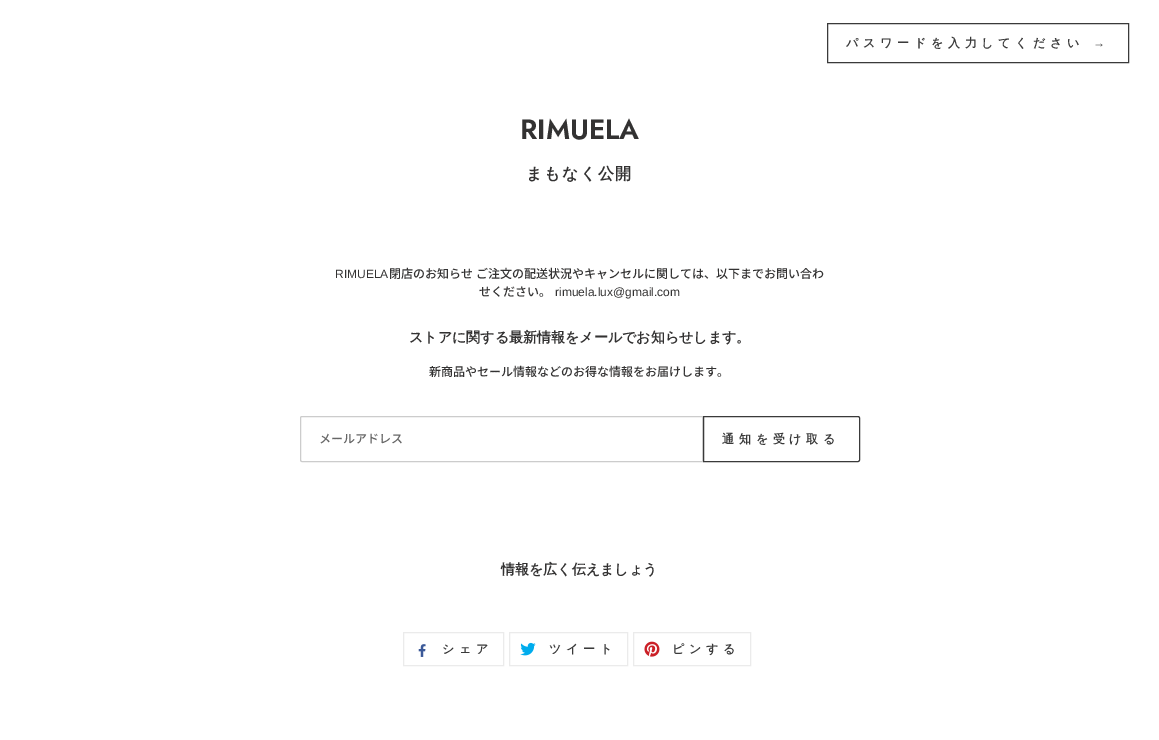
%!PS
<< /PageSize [1159 740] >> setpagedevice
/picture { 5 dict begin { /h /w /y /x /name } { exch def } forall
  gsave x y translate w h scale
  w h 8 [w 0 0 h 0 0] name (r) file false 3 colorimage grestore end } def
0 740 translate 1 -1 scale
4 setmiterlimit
1 setgray
0 0 1159 740 rectfill
0.227 setgray
827.5 23.5 301 39 rectstroke
/WenQuanYiZenHei-Bold [12 0 0 -12 0 0] selectfont
846 47 moveto 4.75 0 (パスワードを入力してください) ashow
/LiberationSans-Bold [12 0 0 -12 0 0] selectfont
1093 47 moveto 4.75 0 (→) ashow
/Jost-SemiBold [28 0 0 -28 0 0] selectfont
0.2 0.196 0.196 setrgbcolor
520 139 moveto (RIMUELA) show
/WenQuanYiZenHei-Bold [16 0 0 -16 0 0] selectfont
526 179 moveto 1.5 0 (まもなく公開) ashow
/LiberationSans-Regular [12 0 0 -12 0 0] selectfont
335 278 moveto (RIMUELA) show
/NotoSansJP-Medium [12 0 0 -12 0 0] selectfont
389 278 moveto (閉店のお知らせ) show
476 278 moveto (ご注文の配送状況やキャンセルに関しては、以下までお問い合わ) show
479 296 moveto (せください。) show
/LiberationSans-Regular [12 0 0 -12 0 0] selectfont
555 296 moveto (rimuela.lux@gmail.com) show
/WenQuanYiZenHei-Bold [14 0 0 -14 0 0] selectfont
409 342 moveto (ストアに関する最新情報をメールでお知らせします。) show
/NotoSansJP-Medium [12 0 0 -12 0 0] selectfont
429 376 moveto (新商品やセール情報などのお得な情報をお届けします。) show
0.8 setgray
newpath 302 416.5 moveto 702.5 416.5 lineto 702.5 461.5 lineto 302 461.5 lineto 301 461.5 300.5 461 300.5 460 curveto 300.5 418 lineto 300.5 417 301 416.5 302 416.5 curveto closepath stroke
0.4 setgray
319 443 moveto (メールアドレス) show
0.227 setgray
newpath 703.5 416.5 moveto 858 416.5 lineto 859 416.5 859.5 417 859.5 418 curveto 859.5 460 lineto 859.5 461 859 461.5 858 461.5 curveto 703.5 461.5 lineto closepath stroke
/WenQuanYiZenHei-Bold [12 0 0 -12 0 0] selectfont
722 443 moveto 4.75 0 (通知を受け取る) ashow
/WenQuanYiZenHei-Bold [14 0 0 -14 0 0] selectfont
0.2 0.196 0.196 setrgbcolor
501 574 moveto (情報を広く伝えましょう) show
0.922 setgray
403.5 632.5 100 33 rectstroke
(img1.rgb) 418 644 8 13 picture
/WenQuanYiZenHei-Bold [12 0 0 -12 0 0] selectfont
0.227 setgray
442 653 moveto 4.75 0 (シェア) ashow
0.922 setgray
509.5 632.5 118 33 rectstroke
(img2.rgb) 520 642 16 14 picture
0.227 setgray
549 653 moveto 4.75 0 (ツイート) ashow
0.922 setgray
633.5 632.5 117 33 rectstroke
(img3.rgb) 644 641 16 16 picture
0.227 setgray
672 653 moveto 4.75 0 (ピンする) ashow
showpage
